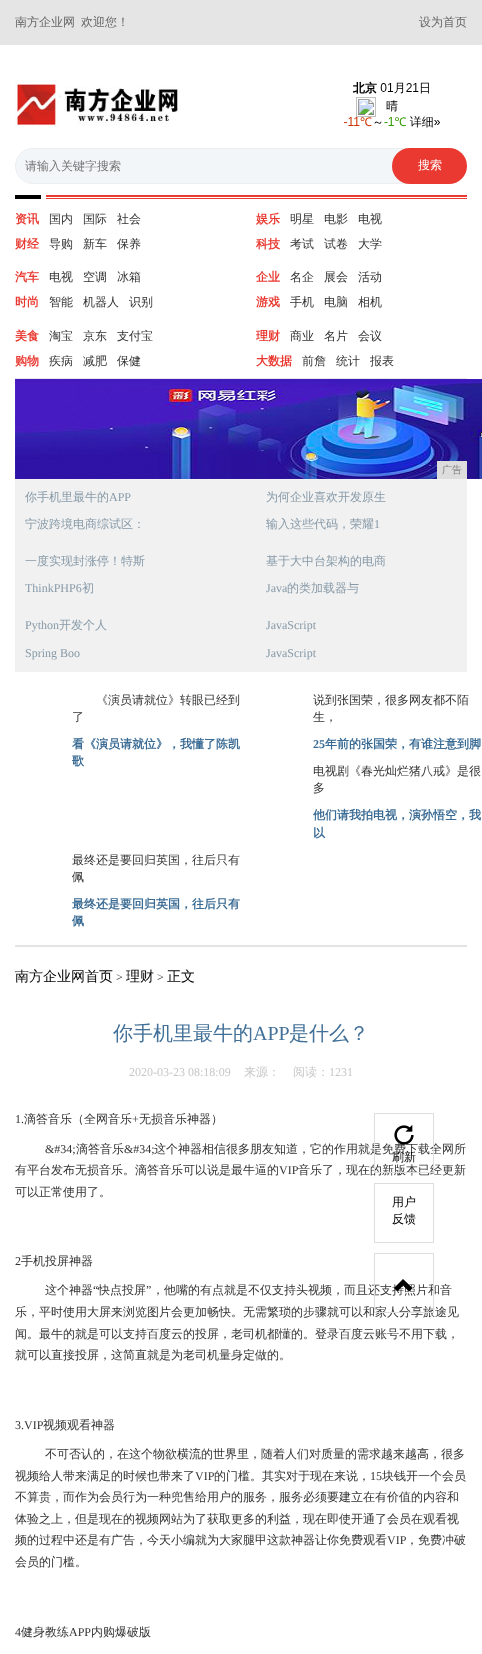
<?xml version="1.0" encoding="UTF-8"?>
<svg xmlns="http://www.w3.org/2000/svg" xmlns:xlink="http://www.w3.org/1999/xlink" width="482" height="1654">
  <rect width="100%" height="100%" fill="#ffffff" />
  <rect width="482" height="45" fill="#e5e5e5" />
  <image x="15" y="80" width="164" height="47" xlink:href="image1.png" />
  <image x="344" y="81" width="96" height="47" xlink:href="image2.png" />
  <rect x="15.5" y="148.5" width="442" height="35" rx="17.5" fill="#f3f6f8" stroke="#eceef0" />
  <rect x="392" y="148" width="75" height="36" rx="18" fill="#e93930" />
  <image x="15" y="195" width="452" height="4" xlink:href="image3.png" />
  <rect x="15" y="378" width="452" height="1" fill="#e6e6e6" />
  <image x="15" y="379" width="467" height="100" xlink:href="image4.png" />
  <rect x="437" y="461" width="30" height="18" fill="#dddddd" />
  <rect x="15" y="479" width="452" height="193" fill="#f1f1f1" />
  <rect x="15" y="945" width="452" height="2" fill="#e3e3e3" />
  <rect x="374.5" y="1183.5" width="59" height="59" fill="none" stroke="#dddddd" />
  <text x="15" y="26" style="font-family: WenQuanYi Zen Hei; font-size: 12px; font-weight: 500; fill: #666666">南方企业网</text>
  <text x="81" y="26" style="font-family: WenQuanYi Zen Hei; font-size: 12px; font-weight: 500; fill: #666666">欢迎您！</text>
  <text x="419" y="26" style="font-family: WenQuanYi Zen Hei; font-size: 12px; font-weight: 500; fill: #666666">设为首页</text>
  <text x="25" y="170" style="font-family: WenQuanYi Zen Hei; font-size: 12px; font-weight: 500; fill: #757575">请输入关键字搜索</text>
  <text x="418" y="169" style="font-family: WenQuanYi Zen Hei; font-size: 12px; font-weight: 500; fill: #ffffff">搜索</text>
  <text x="15" y="223" style="font-family: WenQuanYi Zen Hei; font-size: 12px; font-weight: bold; fill: #e93930">资讯</text>
  <text x="49" y="223" style="font-family: WenQuanYi Zen Hei; font-size: 12px; font-weight: 500; fill: #333333">国内</text>
  <text x="83" y="223" style="font-family: WenQuanYi Zen Hei; font-size: 12px; font-weight: 500; fill: #333333">国际</text>
  <text x="117" y="223" style="font-family: WenQuanYi Zen Hei; font-size: 12px; font-weight: 500; fill: #333333">社会</text>
  <text x="15" y="248" style="font-family: WenQuanYi Zen Hei; font-size: 12px; font-weight: bold; fill: #e93930">财经</text>
  <text x="49" y="248" style="font-family: WenQuanYi Zen Hei; font-size: 12px; font-weight: 500; fill: #333333">导购</text>
  <text x="83" y="248" style="font-family: WenQuanYi Zen Hei; font-size: 12px; font-weight: 500; fill: #333333">新车</text>
  <text x="117" y="248" style="font-family: WenQuanYi Zen Hei; font-size: 12px; font-weight: 500; fill: #333333">保养</text>
  <text x="256" y="223" style="font-family: WenQuanYi Zen Hei; font-size: 12px; font-weight: bold; fill: #e93930">娱乐</text>
  <text x="290" y="223" style="font-family: WenQuanYi Zen Hei; font-size: 12px; font-weight: 500; fill: #333333">明星</text>
  <text x="324" y="223" style="font-family: WenQuanYi Zen Hei; font-size: 12px; font-weight: 500; fill: #333333">电影</text>
  <text x="358" y="223" style="font-family: WenQuanYi Zen Hei; font-size: 12px; font-weight: 500; fill: #333333">电视</text>
  <text x="256" y="248" style="font-family: WenQuanYi Zen Hei; font-size: 12px; font-weight: bold; fill: #e93930">科技</text>
  <text x="290" y="248" style="font-family: WenQuanYi Zen Hei; font-size: 12px; font-weight: 500; fill: #333333">考试</text>
  <text x="324" y="248" style="font-family: WenQuanYi Zen Hei; font-size: 12px; font-weight: 500; fill: #333333">试卷</text>
  <text x="358" y="248" style="font-family: WenQuanYi Zen Hei; font-size: 12px; font-weight: 500; fill: #333333">大学</text>
  <text x="15" y="281" style="font-family: WenQuanYi Zen Hei; font-size: 12px; font-weight: bold; fill: #e93930">汽车</text>
  <text x="49" y="281" style="font-family: WenQuanYi Zen Hei; font-size: 12px; font-weight: 500; fill: #333333">电视</text>
  <text x="83" y="281" style="font-family: WenQuanYi Zen Hei; font-size: 12px; font-weight: 500; fill: #333333">空调</text>
  <text x="117" y="281" style="font-family: WenQuanYi Zen Hei; font-size: 12px; font-weight: 500; fill: #333333">冰箱</text>
  <text x="15" y="306" style="font-family: WenQuanYi Zen Hei; font-size: 12px; font-weight: bold; fill: #e93930">时尚</text>
  <text x="49" y="306" style="font-family: WenQuanYi Zen Hei; font-size: 12px; font-weight: 500; fill: #333333">智能</text>
  <text x="83" y="306" style="font-family: WenQuanYi Zen Hei; font-size: 12px; font-weight: 500; fill: #333333">机器人</text>
  <text x="129" y="306" style="font-family: WenQuanYi Zen Hei; font-size: 12px; font-weight: 500; fill: #333333">识别</text>
  <text x="256" y="281" style="font-family: WenQuanYi Zen Hei; font-size: 12px; font-weight: bold; fill: #e93930">企业</text>
  <text x="290" y="281" style="font-family: WenQuanYi Zen Hei; font-size: 12px; font-weight: 500; fill: #333333">名企</text>
  <text x="324" y="281" style="font-family: WenQuanYi Zen Hei; font-size: 12px; font-weight: 500; fill: #333333">展会</text>
  <text x="358" y="281" style="font-family: WenQuanYi Zen Hei; font-size: 12px; font-weight: 500; fill: #333333">活动</text>
  <text x="256" y="306" style="font-family: WenQuanYi Zen Hei; font-size: 12px; font-weight: bold; fill: #e93930">游戏</text>
  <text x="290" y="306" style="font-family: WenQuanYi Zen Hei; font-size: 12px; font-weight: 500; fill: #333333">手机</text>
  <text x="324" y="306" style="font-family: WenQuanYi Zen Hei; font-size: 12px; font-weight: 500; fill: #333333">电脑</text>
  <text x="358" y="306" style="font-family: WenQuanYi Zen Hei; font-size: 12px; font-weight: 500; fill: #333333">相机</text>
  <text x="15" y="340" style="font-family: WenQuanYi Zen Hei; font-size: 12px; font-weight: bold; fill: #e93930">美食</text>
  <text x="49" y="340" style="font-family: WenQuanYi Zen Hei; font-size: 12px; font-weight: 500; fill: #333333">淘宝</text>
  <text x="83" y="340" style="font-family: WenQuanYi Zen Hei; font-size: 12px; font-weight: 500; fill: #333333">京东</text>
  <text x="117" y="340" style="font-family: WenQuanYi Zen Hei; font-size: 12px; font-weight: 500; fill: #333333">支付宝</text>
  <text x="15" y="365" style="font-family: WenQuanYi Zen Hei; font-size: 12px; font-weight: bold; fill: #e93930">购物</text>
  <text x="49" y="365" style="font-family: WenQuanYi Zen Hei; font-size: 12px; font-weight: 500; fill: #333333">疾病</text>
  <text x="83" y="365" style="font-family: WenQuanYi Zen Hei; font-size: 12px; font-weight: 500; fill: #333333">减肥</text>
  <text x="117" y="365" style="font-family: WenQuanYi Zen Hei; font-size: 12px; font-weight: 500; fill: #333333">保健</text>
  <text x="256" y="340" style="font-family: WenQuanYi Zen Hei; font-size: 12px; font-weight: bold; fill: #e93930">理财</text>
  <text x="290" y="340" style="font-family: WenQuanYi Zen Hei; font-size: 12px; font-weight: 500; fill: #333333">商业</text>
  <text x="324" y="340" style="font-family: WenQuanYi Zen Hei; font-size: 12px; font-weight: 500; fill: #333333">名片</text>
  <text x="358" y="340" style="font-family: WenQuanYi Zen Hei; font-size: 12px; font-weight: 500; fill: #333333">会议</text>
  <text x="256" y="365" style="font-family: WenQuanYi Zen Hei; font-size: 12px; font-weight: bold; fill: #e93930">大数据</text>
  <text x="302" y="365" style="font-family: WenQuanYi Zen Hei; font-size: 12px; font-weight: 500; fill: #333333">前詹</text>
  <text x="336" y="365" style="font-family: WenQuanYi Zen Hei; font-size: 12px; font-weight: 500; fill: #333333">统计</text>
  <text x="370" y="365" style="font-family: WenQuanYi Zen Hei; font-size: 12px; font-weight: 500; fill: #333333">报表</text>
  <text x="442" y="473" style="font-family: WenQuanYi Zen Hei; font-size: 10px; font-weight: 500; fill: #808080">广告</text>
  <text x="25" y="501" style="font-family: WenQuanYi Zen Hei; font-size: 12px; font-weight: 500; fill: #879aa8">你手机里最牛的</text>
  <text x="109" y="501" style="font-family: Liberation Serif; font-size: 12px; fill: #879aa8">APP</text>
  <text x="25" y="528" style="font-family: WenQuanYi Zen Hei; font-size: 12px; font-weight: 500; fill: #879aa8">宁波跨境电商综试区：</text>
  <text x="266" y="501" style="font-family: WenQuanYi Zen Hei; font-size: 12px; font-weight: 500; fill: #879aa8">为何企业喜欢开发原生</text>
  <text x="266" y="528" style="font-family: WenQuanYi Zen Hei; font-size: 12px; font-weight: 500; fill: #879aa8">输入这些代码，荣耀</text>
  <text x="374" y="528" style="font-family: Liberation Serif; font-size: 12px; fill: #879aa8">1</text>
  <text x="25" y="565" style="font-family: WenQuanYi Zen Hei; font-size: 12px; font-weight: 500; fill: #879aa8">一度实现封涨停！特斯</text>
  <text x="25" y="592" style="font-family: Liberation Serif; font-size: 12px; fill: #879aa8">ThinkPHP6</text>
  <text x="82" y="592" style="font-family: WenQuanYi Zen Hei; font-size: 12px; font-weight: 500; fill: #879aa8">初</text>
  <text x="266" y="565" style="font-family: WenQuanYi Zen Hei; font-size: 12px; font-weight: 500; fill: #879aa8">基于大中台架构的电商</text>
  <text x="266" y="592" style="font-family: Liberation Serif; font-size: 12px; fill: #879aa8">Java</text>
  <text x="287" y="592" style="font-family: WenQuanYi Zen Hei; font-size: 12px; font-weight: 500; fill: #879aa8">的类加载器与</text>
  <text x="25" y="629" style="font-family: Liberation Serif; font-size: 12px; fill: #879aa8">Python</text>
  <text x="59" y="629" style="font-family: WenQuanYi Zen Hei; font-size: 12px; font-weight: 500; fill: #879aa8">开发个人</text>
  <text x="25" y="657" style="font-family: Liberation Serif; font-size: 12px; fill: #879aa8">Spring Boo</text>
  <text x="266" y="629" style="font-family: Liberation Serif; font-size: 12px; fill: #879aa8">JavaScript</text>
  <text x="266" y="657" style="font-family: Liberation Serif; font-size: 12px; fill: #879aa8">JavaScript</text>
  <text x="96" y="704" style="font-family: WenQuanYi Zen Hei; font-size: 12px; font-weight: 500; fill: #333333">《演员请就位》转眼已经到</text>
  <text x="72" y="721" style="font-family: WenQuanYi Zen Hei; font-size: 12px; font-weight: 500; fill: #333333">了</text>
  <text x="72" y="748" style="font-family: WenQuanYi Zen Hei; font-size: 12px; font-weight: bold; fill: #3a6b94">看《演员请就位》，我懂了陈凯</text>
  <text x="72" y="765" style="font-family: WenQuanYi Zen Hei; font-size: 12px; font-weight: bold; fill: #3a6b94">歌</text>
  <text x="313" y="704" style="font-family: WenQuanYi Zen Hei; font-size: 12px; font-weight: 500; fill: #333333">说到张国荣，很多网友都不陌</text>
  <text x="313" y="721" style="font-family: WenQuanYi Zen Hei; font-size: 12px; font-weight: 500; fill: #333333">生，</text>
  <text x="313" y="748" style="font-family: Liberation Serif; font-size: 12px; font-weight: bold; fill: #3a6b94">25</text>
  <text x="325" y="748" style="font-family: WenQuanYi Zen Hei; font-size: 12px; font-weight: bold; fill: #3a6b94">年前的张国荣，有谁注意到脚</text>
  <text x="313" y="775" style="font-family: WenQuanYi Zen Hei; font-size: 12px; font-weight: 500; fill: #333333">电视剧《春光灿烂猪八戒》是很</text>
  <text x="313" y="792" style="font-family: WenQuanYi Zen Hei; font-size: 12px; font-weight: 500; fill: #333333">多</text>
  <text x="313" y="819" style="font-family: WenQuanYi Zen Hei; font-size: 12px; font-weight: bold; fill: #3a6b94">他们请我拍电视，演孙悟空，我</text>
  <text x="313" y="837" style="font-family: WenQuanYi Zen Hei; font-size: 12px; font-weight: bold; fill: #3a6b94">以</text>
  <text x="72" y="864" style="font-family: WenQuanYi Zen Hei; font-size: 12px; font-weight: 500; fill: #333333">最终还是要回归英国，往后只有</text>
  <text x="72" y="881" style="font-family: WenQuanYi Zen Hei; font-size: 12px; font-weight: 500; fill: #333333">佩</text>
  <text x="72" y="908" style="font-family: WenQuanYi Zen Hei; font-size: 12px; font-weight: bold; fill: #3a6b94">最终还是要回归英国，往后只有</text>
  <text x="72" y="925" style="font-family: WenQuanYi Zen Hei; font-size: 12px; font-weight: bold; fill: #3a6b94">佩</text>
  <text x="15" y="981" style="font-family: WenQuanYi Zen Hei; font-size: 14px; font-weight: 500; fill: #000000">南方企业网首页</text>
  <text x="116" y="981" style="font-family: Liberation Serif; font-size: 12px; fill: #333333">&gt;</text>
  <text x="126" y="981" style="font-family: WenQuanYi Zen Hei; font-size: 14px; font-weight: 500; fill: #000000">理财</text>
  <text x="157" y="981" style="font-family: Liberation Serif; font-size: 12px; fill: #333333">&gt;</text>
  <text x="167" y="981" style="font-family: WenQuanYi Zen Hei; font-size: 14px; font-weight: 500; fill: #000000">正文</text>
  <text x="113" y="1040" style="font-family: WenQuanYi Zen Hei; font-size: 20px; font-weight: 500; fill: #427098">你手机里最牛的</text>
  <text x="253" y="1040" style="font-family: Liberation Serif; font-size: 20px; fill: #427098">APP</text>
  <text x="289" y="1040" style="font-family: WenQuanYi Zen Hei; font-size: 20px; font-weight: 500; fill: #427098">是什么？</text>
  <text x="129" y="1076" style="font-family: Liberation Serif; font-size: 12px; fill: #c7c7c7">2020-03-23 08:18:09</text>
  <text x="244" y="1076" style="font-family: WenQuanYi Zen Hei; font-size: 12px; font-weight: 500; fill: #c7c7c7">来源：</text>
  <text x="293" y="1076" style="font-family: WenQuanYi Zen Hei; font-size: 12px; font-weight: 500; fill: #c7c7c7">阅读：</text>
  <text x="329" y="1076" style="font-family: Liberation Serif; font-size: 12px; fill: #c7c7c7">1231</text>
  <text x="15" y="1123" style="font-family: Liberation Serif; font-size: 12px; fill: #333333">1.</text>
  <text x="24" y="1123" style="font-family: WenQuanYi Zen Hei; font-size: 12px; font-weight: 500; fill: #333333">滴答音乐（全网音乐</text>
  <text x="132" y="1123" style="font-family: Liberation Serif; font-size: 12px; fill: #333333">+</text>
  <text x="139" y="1123" style="font-family: WenQuanYi Zen Hei; font-size: 12px; font-weight: 500; fill: #333333">无损音乐神器）</text>
  <text x="45" y="1153" style="font-family: Liberation Serif; font-size: 12px; fill: #333333">&amp;#34;</text>
  <text x="76" y="1153" style="font-family: WenQuanYi Zen Hei; font-size: 12px; font-weight: 500; fill: #333333">滴答音乐</text>
  <text x="124" y="1153" style="font-family: Liberation Serif; font-size: 12px; fill: #333333">&amp;#34;</text>
  <text x="154" y="1153" style="font-family: WenQuanYi Zen Hei; font-size: 12px; font-weight: 500; fill: #333333">这个神器相信很多朋友知道，它的作用就是免费下载全网所</text>
  <text x="15" y="1174" style="font-family: WenQuanYi Zen Hei; font-size: 12px; font-weight: 500; fill: #333333">有平台发布无损音乐。滴答音乐可以说是最牛逼的</text>
  <text x="279" y="1174" style="font-family: Liberation Serif; font-size: 12px; fill: #333333">VIP</text>
  <text x="298" y="1174" style="font-family: WenQuanYi Zen Hei; font-size: 12px; font-weight: 500; fill: #333333">音乐了，现在的新版本已经更新</text>
  <text x="15" y="1196" style="font-family: WenQuanYi Zen Hei; font-size: 12px; font-weight: 500; fill: #333333">可以正常使用了。</text>
  <text x="15" y="1265" style="font-family: Liberation Serif; font-size: 12px; fill: #333333">2</text>
  <text x="21" y="1265" style="font-family: WenQuanYi Zen Hei; font-size: 12px; font-weight: 500; fill: #333333">手机投屏神器</text>
  <text x="45" y="1294" style="font-family: WenQuanYi Zen Hei; font-size: 12px; font-weight: 500; fill: #333333">这个神器</text>
  <text x="93" y="1294" style="font-family: Liberation Serif; font-size: 12px; fill: #333333">“</text>
  <text x="98" y="1294" style="font-family: WenQuanYi Zen Hei; font-size: 12px; font-weight: 500; fill: #333333">快点投屏</text>
  <text x="146" y="1294" style="font-family: Liberation Serif; font-size: 12px; fill: #333333">”</text>
  <text x="152" y="1294" style="font-family: WenQuanYi Zen Hei; font-size: 12px; font-weight: 500; fill: #333333">，他嘴的有点就是不仅支持头视频，而且还支持照片和音</text>
  <text x="15" y="1316" style="font-family: WenQuanYi Zen Hei; font-size: 12px; font-weight: 500; fill: #333333">乐，平时使用大屏来浏览图片会更加畅快。无需繁琐的步骤就可以和家人分享旅途见</text>
  <text x="15" y="1338" style="font-family: WenQuanYi Zen Hei; font-size: 12px; font-weight: 500; fill: #333333">闻。最牛的就是可以支持百度云的投屏，老司机都懂的。登录百度云账号不用下载，</text>
  <text x="15" y="1359" style="font-family: WenQuanYi Zen Hei; font-size: 12px; font-weight: 500; fill: #333333">就可以直接投屏，这简直就是为老司机量身定做的。</text>
  <text x="15" y="1429" style="font-family: Liberation Serif; font-size: 12px; fill: #333333">3.VIP</text>
  <text x="43" y="1429" style="font-family: WenQuanYi Zen Hei; font-size: 12px; font-weight: 500; fill: #333333">视频观看神器</text>
  <text x="45" y="1458" style="font-family: WenQuanYi Zen Hei; font-size: 12px; font-weight: 500; fill: #333333">不可否认的，在这个物欲横流的世界里，随着人们对质量的需求越来越高，很多</text>
  <text x="15" y="1480" style="font-family: WenQuanYi Zen Hei; font-size: 12px; font-weight: 500; fill: #333333">视频给人带来满足的时候也带来了</text>
  <text x="195" y="1480" style="font-family: Liberation Serif; font-size: 12px; fill: #333333">VIP</text>
  <text x="214" y="1480" style="font-family: WenQuanYi Zen Hei; font-size: 12px; font-weight: 500; fill: #333333">的门槛。其实对于现在来说，</text>
  <text x="370" y="1480" style="font-family: Liberation Serif; font-size: 12px; fill: #333333">15</text>
  <text x="382" y="1480" style="font-family: WenQuanYi Zen Hei; font-size: 12px; font-weight: 500; fill: #333333">块钱开一个会员</text>
  <text x="15" y="1501" style="font-family: WenQuanYi Zen Hei; font-size: 12px; font-weight: 500; fill: #333333">不算贵，而作为会员行为一种兜售给用户的服务，服务必须要建立在有价值的内容和</text>
  <text x="15" y="1523" style="font-family: WenQuanYi Zen Hei; font-size: 12px; font-weight: 500; fill: #333333">体验之上，但是现在的视频网站为了获取更多的利益，现在即使开通了会员在观看视</text>
  <text x="15" y="1544" style="font-family: WenQuanYi Zen Hei; font-size: 12px; font-weight: 500; fill: #333333">频的过程中还是有广告，今天小编就为大家腿甲这款神器让你免费观看</text>
  <text x="387" y="1544" style="font-family: Liberation Serif; font-size: 12px; fill: #333333">VIP</text>
  <text x="406" y="1544" style="font-family: WenQuanYi Zen Hei; font-size: 12px; font-weight: 500; fill: #333333">，免费冲破</text>
  <text x="15" y="1566" style="font-family: WenQuanYi Zen Hei; font-size: 12px; font-weight: 500; fill: #333333">会员的门槛。</text>
  <text x="15" y="1636" style="font-family: Liberation Serif; font-size: 12px; fill: #333333">4</text>
  <text x="21" y="1636" style="font-family: WenQuanYi Zen Hei; font-size: 12px; font-weight: 500; fill: #333333">健身教练</text>
  <text x="69" y="1636" style="font-family: Liberation Serif; font-size: 12px; fill: #333333">APP</text>
  <text x="91" y="1636" style="font-family: WenQuanYi Zen Hei; font-size: 12px; font-weight: 500; fill: #333333">内购爆破版</text>
  <rect x="374.5" y="1113.5" width="59" height="59" fill="none" stroke="#dddddd" />
  <image x="394" y="1125" width="20" height="20" xlink:href="image5.png" />
  <text x="392" y="1161" style="font-family: WenQuanYi Zen Hei; font-size: 12px; font-weight: 500; fill: #000000">刷新</text>
  <text x="392" y="1206" style="font-family: WenQuanYi Zen Hei; font-size: 12px; font-weight: 500; fill: #000000">用户</text>
  <text x="392" y="1223" style="font-family: WenQuanYi Zen Hei; font-size: 12px; font-weight: 500; fill: #000000">反馈</text>
  <rect x="374.5" y="1253.5" width="59" height="59" fill="none" stroke="#dddddd" />
  <path d="M 412.5 1288 l -3.5 3.5 l -6 -6 l -5.5 6 l -3.5 -3.5 l 9 -9 z" fill="#000000" />
</svg>
